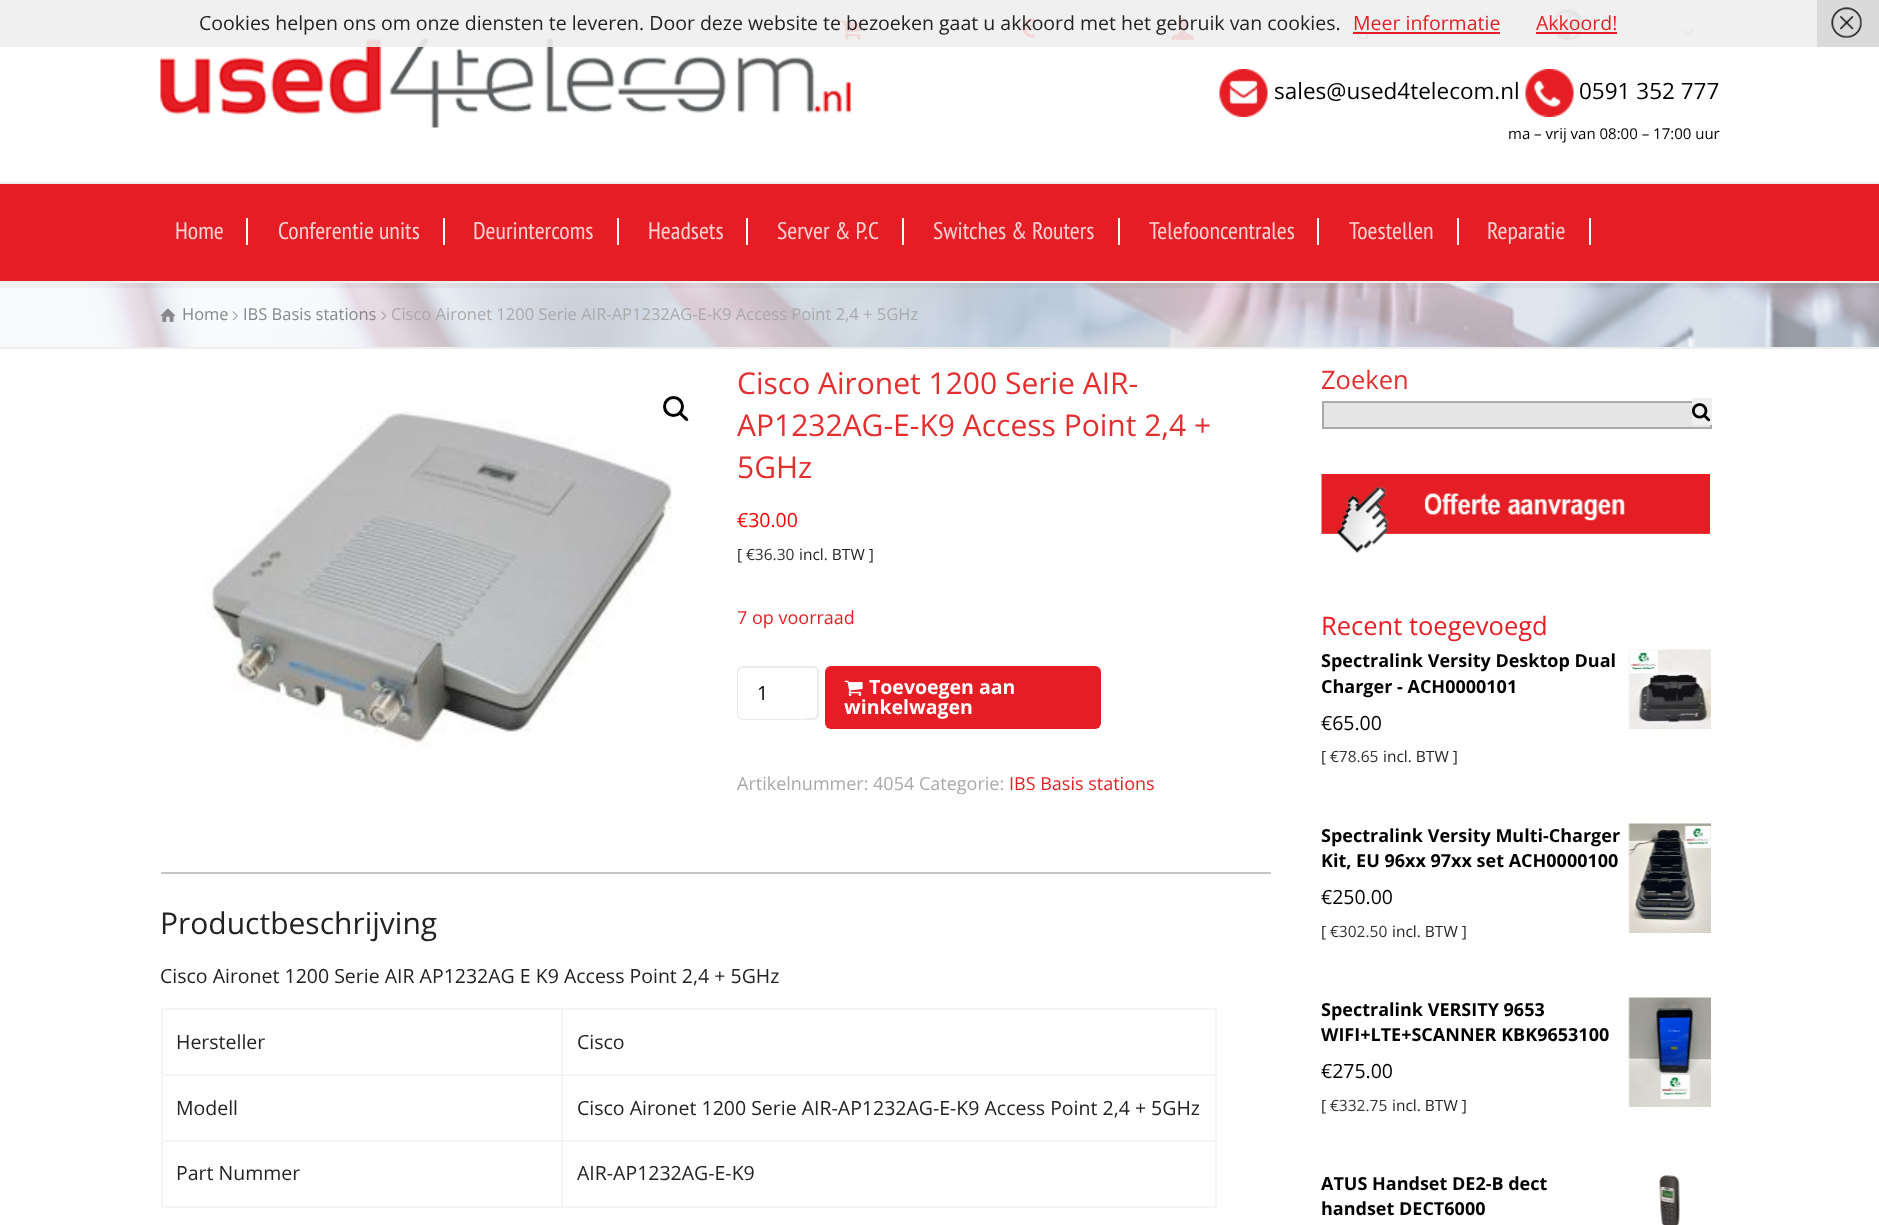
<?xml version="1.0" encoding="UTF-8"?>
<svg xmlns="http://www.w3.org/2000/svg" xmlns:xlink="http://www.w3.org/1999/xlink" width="1879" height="1225">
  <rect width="100%" height="100%" fill="#ffffff" />
  <image x="840" y="20" width="23" height="20" xlink:href="image2.png" />
  <image x="1021" y="18" width="14" height="20" xlink:href="image3.png" />
  <image x="1171" y="18" width="24" height="22" xlink:href="image4.png" />
  <image x="1353" y="24" width="15" height="16" xlink:href="image5.png" />
  <image x="1552" y="9" width="32" height="32" xlink:href="image6.png" />
  <image x="1683" y="29" width="10" height="6" xlink:href="image7.png" />
  <image x="160" y="38" width="691" height="90" xlink:href="image8.png" />
  <rect width="1817" height="47" fill="#eeeeee" fill-opacity="0.9" />
  <rect x="1353" y="32" width="147" height="2" fill="#e41e24" />
  <rect x="1536" y="32" width="81" height="2" fill="#e41e24" />
  <rect x="1817" width="62" height="47" fill="#dadada" />
  <image x="1831" y="7" width="31" height="31" xlink:href="image1.png" />
  <image x="1219" y="69" width="49" height="48" xlink:href="image9.png" />
  <image x="1525" y="69" width="49" height="48" xlink:href="image10.png" />
  <image x="0" y="283" width="1879" height="64" xlink:href="image11.png" />
  <path d="M 0 282 v 6 h 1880 v -100 v 94 z" fill="#000000" fill-opacity="0.04" />
  <rect y="184" width="1879" height="97" fill="#e41e24" />
  <rect y="182" width="1879" height="2" fill="#eeeeee" />
  <rect y="281" width="1879" height="2" fill="#eeeeee" />
  <rect x="246" y="218" width="2" height="27" fill="#ffffff" />
  <rect x="443" y="218" width="2" height="27" fill="#ffffff" />
  <rect x="617" y="218" width="2" height="27" fill="#ffffff" />
  <rect x="746" y="218" width="2" height="27" fill="#ffffff" />
  <rect x="902" y="218" width="2" height="27" fill="#ffffff" />
  <rect x="1118" y="218" width="2" height="27" fill="#ffffff" />
  <rect x="1317" y="218" width="2" height="27" fill="#ffffff" />
  <rect x="1457" y="218" width="2" height="27" fill="#ffffff" />
  <rect x="1589" y="218" width="2" height="27" fill="#ffffff" />
  <rect y="347" width="1879" height="2" fill="#eeeeee" />
  <image x="160" y="308" width="16" height="14" xlink:href="image12.png" />
  <image x="232" y="311" width="6" height="10" xlink:href="image13.png" />
  <image x="381" y="311" width="6" height="10" xlink:href="image14.png" />
  <image x="206" y="410" width="467" height="337" xlink:href="image15.png" />
  <circle cx="673.5" cy="406.5" r="9" fill="none" stroke="#000000" stroke-width="3" />
  <path d="M 679.5 412 c 1.5 -1.5 4 2.5 5 3.5 c 1 0.5 5 3.5 3.5 5 c -2 2 -4.5 -2 -5.5 -3 c -1 -1 -5 -3.5 -3 -5.5 z" fill="#000000" />
  <rect x="738" y="667" width="80" height="52" rx="5" fill="none" stroke="#ebebeb" stroke-width="2" />
  <rect x="738" y="668" width="72" height="51" rx="6" fill="#ffffff" />
  <rect x="825" y="666" width="276" height="63" rx="6" fill="#e41e24" />
  <image x="844" y="680" width="19" height="16" xlink:href="image16.png" />
  <rect x="161" y="872" width="1110" height="2" fill="#c5c5c5" />
  <rect x="161" y="1008" width="1056" height="2" fill="#f5f5f5" />
  <rect x="1215" y="1008" width="2" height="200" fill="#f5f5f5" />
  <rect x="161" y="1074" width="1054" height="2" fill="#f5f5f5" />
  <rect x="161" y="1010" width="2" height="66" fill="#f5f5f5" />
  <rect x="561" y="1010" width="2" height="66" fill="#f5f5f5" />
  <rect x="161" y="1140" width="1054" height="2" fill="#f5f5f5" />
  <rect x="161" y="1076" width="2" height="66" fill="#f5f5f5" />
  <rect x="561" y="1076" width="2" height="66" fill="#f5f5f5" />
  <rect x="161" y="1206" width="1054" height="2" fill="#f5f5f5" />
  <rect x="161" y="1142" width="2" height="66" fill="#f5f5f5" />
  <rect x="561" y="1142" width="2" height="66" fill="#f5f5f5" />
  <rect x="1323" y="402" width="388" height="26" fill="#e5e5e5" stroke="#aaaaaa" stroke-width="2" />
  <rect x="1692" y="398" width="20" height="27" fill="#efefef" />
  <image x="1692" y="403" width="19" height="19" xlink:href="image17.png" />
  <image x="1321" y="474" width="389" height="79" xlink:href="image18.png" />
  <image x="1628" y="649" width="83" height="80" xlink:href="image19.png" />
  <image x="1628" y="823" width="83" height="110" xlink:href="image20.png" />
  <image x="1628" y="997" width="83" height="110" xlink:href="image21.png" />
  <image x="1659" y="1171" width="22" height="54" xlink:href="image22.png" />
  <text x="199" y="30" style="font-family: Open Sans; font-size: 19.5px; fill: #222222">Cookies helpen ons om onze diensten te leveren. Door deze website te bezoeken gaat u akkoord met het gebruik van cookies.</text>
  <text x="1353" y="30" style="font-family: Open Sans; font-size: 19.5px; fill: #e41e24">Meer informatie</text>
  <text x="1536" y="30" style="font-family: Open Sans; font-size: 19.5px; fill: #e41e24">Akkoord!</text>
  <text x="1274" y="99" style="font-family: Open Sans; font-size: 22.5px; fill: #000000">sales@used4telecom.nl</text>
  <text x="1579" y="99" style="font-family: Open Sans; font-size: 22.5px; fill: #000000">0591 352 777</text>
  <text x="1508" y="139" style="font-family: Open Sans; font-size: 15px; fill: #000000">ma – vrij van 08:00 – 17:00 uur</text>
  <text x="175" y="239" style="font-family: PT Sans Narrow; font-size: 24px; fill: #fad2d3">Home</text>
  <text x="278" y="239" style="font-family: PT Sans Narrow; font-size: 24px; fill: #fad2d3">Conferentie units</text>
  <text x="473" y="239" style="font-family: PT Sans Narrow; font-size: 24px; fill: #fad2d3">Deurintercoms</text>
  <text x="648" y="239" style="font-family: PT Sans Narrow; font-size: 24px; fill: #fad2d3">Headsets</text>
  <text x="777" y="239" style="font-family: PT Sans Narrow; font-size: 24px; fill: #fad2d3">Server &amp; P.C</text>
  <text x="933" y="239" style="font-family: PT Sans Narrow; font-size: 24px; fill: #fad2d3">Switches &amp; Routers</text>
  <text x="1149" y="239" style="font-family: PT Sans Narrow; font-size: 24px; fill: #fad2d3">Telefooncentrales</text>
  <text x="1349" y="239" style="font-family: PT Sans Narrow; font-size: 24px; fill: #fad2d3">Toestellen</text>
  <text x="1487" y="239" style="font-family: PT Sans Narrow; font-size: 24px; fill: #fad2d3">Reparatie</text>
  <text x="182" y="320" style="font-family: Open Sans; font-size: 16.5px; fill: #888888">Home</text>
  <text x="243" y="320" style="font-family: Open Sans; font-size: 16.5px; fill: #888888">IBS Basis stations</text>
  <text x="391" y="320" style="font-family: Open Sans; font-size: 16.5px; fill: #aaaaaa">Cisco Aironet 1200 Serie AIR-AP1232AG-E-K9 Access Point 2,4 + 5GHz</text>
  <text x="737" y="394" style="font-family: Open Sans; font-size: 30px; fill: #e42f31">Cisco Aironet 1200 Serie AIR-</text>
  <text x="737" y="436" style="font-family: Open Sans; font-size: 30px; fill: #e42f31">AP1232AG-E-K9 Access Point 2,4 +</text>
  <text x="737" y="478" style="font-family: Open Sans; font-size: 30px; fill: #e42f31">5GHz</text>
  <text x="737" y="527" style="font-family: Open Sans; font-size: 19.5px; fill: #ff0000">€30.00</text>
  <text x="737" y="560" style="font-family: Open Sans; font-size: 15.5px; fill: #222222">[</text>
  <text x="746" y="560" style="font-family: Open Sans; font-size: 15.5px; fill: #333333">€36.30</text>
  <text x="799" y="560" style="font-family: Open Sans; font-size: 15.5px; fill: #222222">incl. BTW ]</text>
  <text x="737" y="624" style="font-family: Open Sans; font-size: 18px; fill: #e41e24">7 op voorraad</text>
  <text x="757" y="700" style="font-family: Open Sans; font-size: 19.5px; fill: #000000">1</text>
  <text x="869" y="694" style="font-family: Open Sans; font-size: 19.5px; font-weight: bold; fill: #ffffff">Toevoegen aan</text>
  <text x="844" y="714" style="font-family: Open Sans; font-size: 19.5px; font-weight: bold; fill: #ffffff">winkelwagen</text>
  <text x="737" y="790" style="font-family: Open Sans; font-size: 18px; fill: #aaaaaa">Artikelnummer: 4054 Categorie:</text>
  <text x="1009" y="790" style="font-family: Open Sans; font-size: 18px; fill: #e41e24">IBS Basis stations</text>
  <text x="160" y="934" style="font-family: Open Sans; font-size: 30px; fill: #222222">Productbeschrijving</text>
  <text x="160" y="983" style="font-family: Open Sans; font-size: 19.5px; fill: #222222">Cisco Aironet 1200 Serie AIR AP1232AG E K9 Access Point 2,4 + 5GHz</text>
  <text x="176" y="1049" style="font-family: Open Sans; font-size: 19.5px; fill: #222222">Hersteller</text>
  <text x="577" y="1049" style="font-family: Open Sans; font-size: 19.5px; fill: #222222">Cisco</text>
  <text x="176" y="1115" style="font-family: Open Sans; font-size: 19.5px; fill: #222222">Modell</text>
  <text x="577" y="1115" style="font-family: Open Sans; font-size: 19.5px; fill: #222222">Cisco Aironet 1200 Serie AIR-AP1232AG-E-K9 Access Point 2,4 + 5GHz</text>
  <text x="176" y="1180" style="font-family: Open Sans; font-size: 19.5px; fill: #222222">Part Nummer</text>
  <text x="577" y="1180" style="font-family: Open Sans; font-size: 19.5px; fill: #222222">AIR-AP1232AG-E-K9</text>
  <text x="1321" y="389" style="font-family: Open Sans; font-size: 25.5px; fill: #e42f31">Zoeken</text>
  <text x="1321" y="635" style="font-family: Open Sans; font-size: 25.5px; fill: #e41e24">Recent toegevoegd</text>
  <text x="1321" y="667" style="font-family: Open Sans; font-size: 18px; font-weight: bold; fill: #000000">Spectralink Versity Desktop Dual</text>
  <text x="1321" y="693" style="font-family: Open Sans; font-size: 18px; font-weight: bold; fill: #000000">Charger - ACH0000101</text>
  <text x="1321" y="730" style="font-family: Open Sans; font-size: 19.5px; fill: #000000">€65.00</text>
  <text x="1321" y="762" style="font-family: Open Sans; font-size: 15.5px; fill: #222222">[</text>
  <text x="1330" y="762" style="font-family: Open Sans; font-size: 15.5px; fill: #333333">€78.65</text>
  <text x="1383" y="762" style="font-family: Open Sans; font-size: 15.5px; fill: #222222">incl. BTW ]</text>
  <text x="1321" y="842" style="font-family: Open Sans; font-size: 18px; font-weight: bold; fill: #000000">Spectralink Versity Multi-Charger</text>
  <text x="1321" y="867" style="font-family: Open Sans; font-size: 18px; font-weight: bold; fill: #000000">Kit, EU 96xx 97xx set ACH0000100</text>
  <text x="1321" y="904" style="font-family: Open Sans; font-size: 19.5px; fill: #000000">€250.00</text>
  <text x="1321" y="937" style="font-family: Open Sans; font-size: 15.5px; fill: #222222">[</text>
  <text x="1330" y="937" style="font-family: Open Sans; font-size: 15.5px; fill: #333333">€302.50</text>
  <text x="1392" y="937" style="font-family: Open Sans; font-size: 15.5px; fill: #222222">incl. BTW ]</text>
  <text x="1321" y="1016" style="font-family: Open Sans; font-size: 18px; font-weight: bold; fill: #000000">Spectralink VERSITY 9653</text>
  <text x="1321" y="1041" style="font-family: Open Sans; font-size: 18px; font-weight: bold; fill: #000000">WIFI+LTE+SCANNER KBK9653100</text>
  <text x="1321" y="1078" style="font-family: Open Sans; font-size: 19.5px; fill: #000000">€275.00</text>
  <text x="1321" y="1111" style="font-family: Open Sans; font-size: 15.5px; fill: #222222">[</text>
  <text x="1330" y="1111" style="font-family: Open Sans; font-size: 15.5px; fill: #333333">€332.75</text>
  <text x="1392" y="1111" style="font-family: Open Sans; font-size: 15.5px; fill: #222222">incl. BTW ]</text>
  <text x="1321" y="1190" style="font-family: Open Sans; font-size: 18px; font-weight: bold; fill: #000000">ATUS Handset DE2-B dect</text>
  <text x="1321" y="1215" style="font-family: Open Sans; font-size: 18px; font-weight: bold; fill: #000000">handset DECT6000</text>
</svg>
